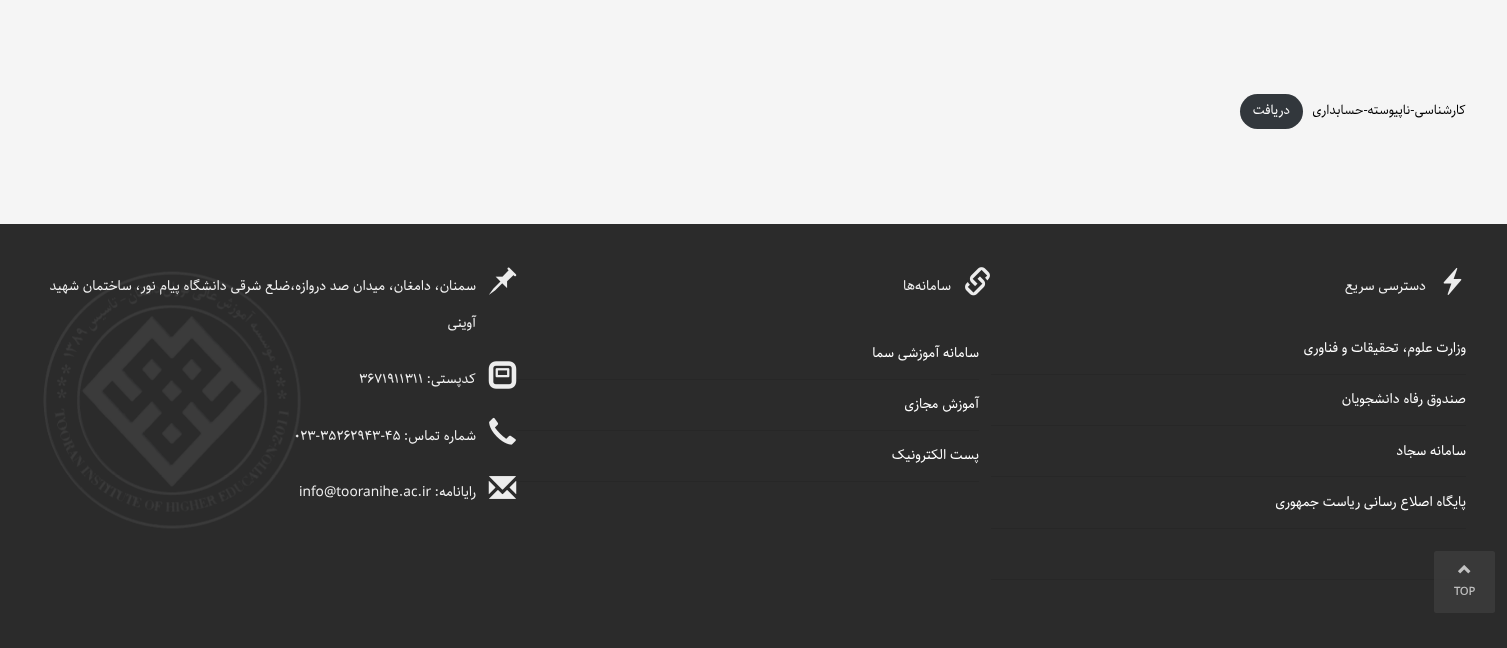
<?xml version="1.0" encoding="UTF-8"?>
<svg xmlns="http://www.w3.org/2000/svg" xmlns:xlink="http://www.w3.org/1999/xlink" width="1507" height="648">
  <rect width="100%" height="100%" fill="#f5f5f5" />
  <rect x="1240" y="94" width="63" height="35" rx="17.5" fill="#32373c" />
  <rect y="224" width="1507" height="424" fill="#2b2b2b" />
  <image x="1443" y="267" width="19" height="28" xlink:href="image1.png" />
  <rect x="991" y="374" width="475" height="1" fill="#272727" />
  <rect x="991" y="425" width="475" height="1" fill="#272727" />
  <rect x="991" y="476" width="475" height="1" fill="#272727" />
  <rect x="991" y="528" width="475" height="1" fill="#272727" />
  <rect x="991" y="579" width="475" height="1" fill="#272727" />
  <image x="1457" y="556" width="4" height="3" xlink:href="image6.png" />
  <image x="965" y="267" width="25" height="29" xlink:href="image7.png" />
  <rect x="516" y="379" width="463" height="1" fill="#272727" />
  <rect x="516" y="430" width="463" height="1" fill="#272727" />
  <rect x="516" y="481" width="463" height="1" fill="#272727" />
  <image x="43" y="271" width="258" height="258" xlink:href="image10.png" />
  <image x="489" y="267" width="28" height="28" xlink:href="image11.png" />
  <image x="488" y="361" width="29" height="28" xlink:href="image12.png" />
  <image x="489" y="417" width="27" height="28" xlink:href="image13.png" />
  <image x="488" y="476" width="29" height="23" xlink:href="image14.png" />
  <rect x="1434" y="551" width="61" height="62" rx="2.5" fill="#404040" fill-opacity="0.7" />
  <image x="1458" y="565" width="13" height="9" xlink:href="image15.png" />
  <text x="1466" y="114" style="font-family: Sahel; font-size: 13px; direction: rtl; fill: #000000">کارشناسی-ناپیوسته-حسابداری</text>
  <text x="1290" y="114" style="font-family: Sahel; font-size: 13px; direction: rtl; fill: #ffffff">دریافت</text>
  <text x="1426" y="290" style="font-family: Sahel; font-size: 13.75px; direction: rtl; fill: #f2f2f2">دسترسی سریع</text>
  <text x="1466" y="352" style="font-family: Sahel; font-size: 13.75px; direction: rtl; fill: #ffffff">وزارت علوم، تحقیقات و فناوری</text>
  <image x="1457" y="345" width="7" height="10" xlink:href="image2.png" />
  <text x="1466" y="403" style="font-family: Sahel; font-size: 13.75px; direction: rtl; fill: #ffffff">صندوق رفاه دانشجویان</text>
  <image x="1459" y="398" width="4" height="5" xlink:href="image3.png" />
  <text x="1466" y="455" style="font-family: Sahel; font-size: 13.75px; direction: rtl; fill: #ffffff">سامانه سجاد</text>
  <image x="1458" y="451" width="5" height="4" xlink:href="image4.png" />
  <text x="1466" y="506" style="font-family: Sahel; font-size: 13.75px; direction: rtl; fill: #ffffff">پایگاه اصلاع رسانی ریاست جمهوری</text>
  <image x="1459" y="498" width="3" height="8" xlink:href="image5.png" />
  <text x="951" y="290" style="font-family: Sahel; font-size: 13.75px; direction: rtl; fill: #f2f2f2">سامانه‌ها</text>
  <text x="979" y="357" style="font-family: Sahel; font-size: 13.75px; direction: rtl; fill: #ffffff">سامانه آموزشی سما</text>
  <image x="971" y="353" width="4" height="4" xlink:href="image8.png" />
  <text x="979" y="408" style="font-family: Sahel; font-size: 13.75px; direction: rtl; fill: #ffffff">آموزش مجازی</text>
  <text x="979" y="459" style="font-family: Sahel; font-size: 13.75px; direction: rtl; fill: #ffffff">پست الکترونیک</text>
  <image x="972" y="457" width="3" height="2" xlink:href="image9.png" />
  <text x="476" y="290" style="font-family: Sahel; font-size: 13.75px; direction: rtl; fill: #f2f2f2">سمنان، دامغان، میدان صد دروازه،ضلع شرقی دانشگاه پیام نور، ساختمان شهید</text>
  <text x="476" y="327" style="font-family: Sahel; font-size: 13.75px; direction: rtl; fill: #f2f2f2">آوینی</text>
  <text x="476" y="383" style="font-family: Sahel; font-size: 13.75px; direction: rtl; fill: #f2f2f2">کدپستی:</text>
  <text x="359" y="383" style="font-family: Sahel; font-size: 13.75px; fill: #f2f2f2">3671911311</text>
  <text x="476" y="440" style="font-family: Sahel; font-size: 13.75px; direction: rtl; fill: #f2f2f2">شماره تماس:</text>
  <text x="294" y="440" style="font-family: Sahel; font-size: 13.75px; fill: #f2f2f2">023-35262943-45</text>
  <text x="476" y="496" style="font-family: Sahel; font-size: 13.75px; direction: rtl; fill: #f2f2f2">رایانامه:</text>
  <text x="299" y="496" style="font-family: Sahel; font-size: 13.75px; fill: #f2f2f2">info@tooranihe.ac.ir</text>
  <text x="1454" y="595" style="font-family: Sahel; font-size: 11px; font-weight: bold; fill: #bfbfbf">TOP</text>
</svg>
